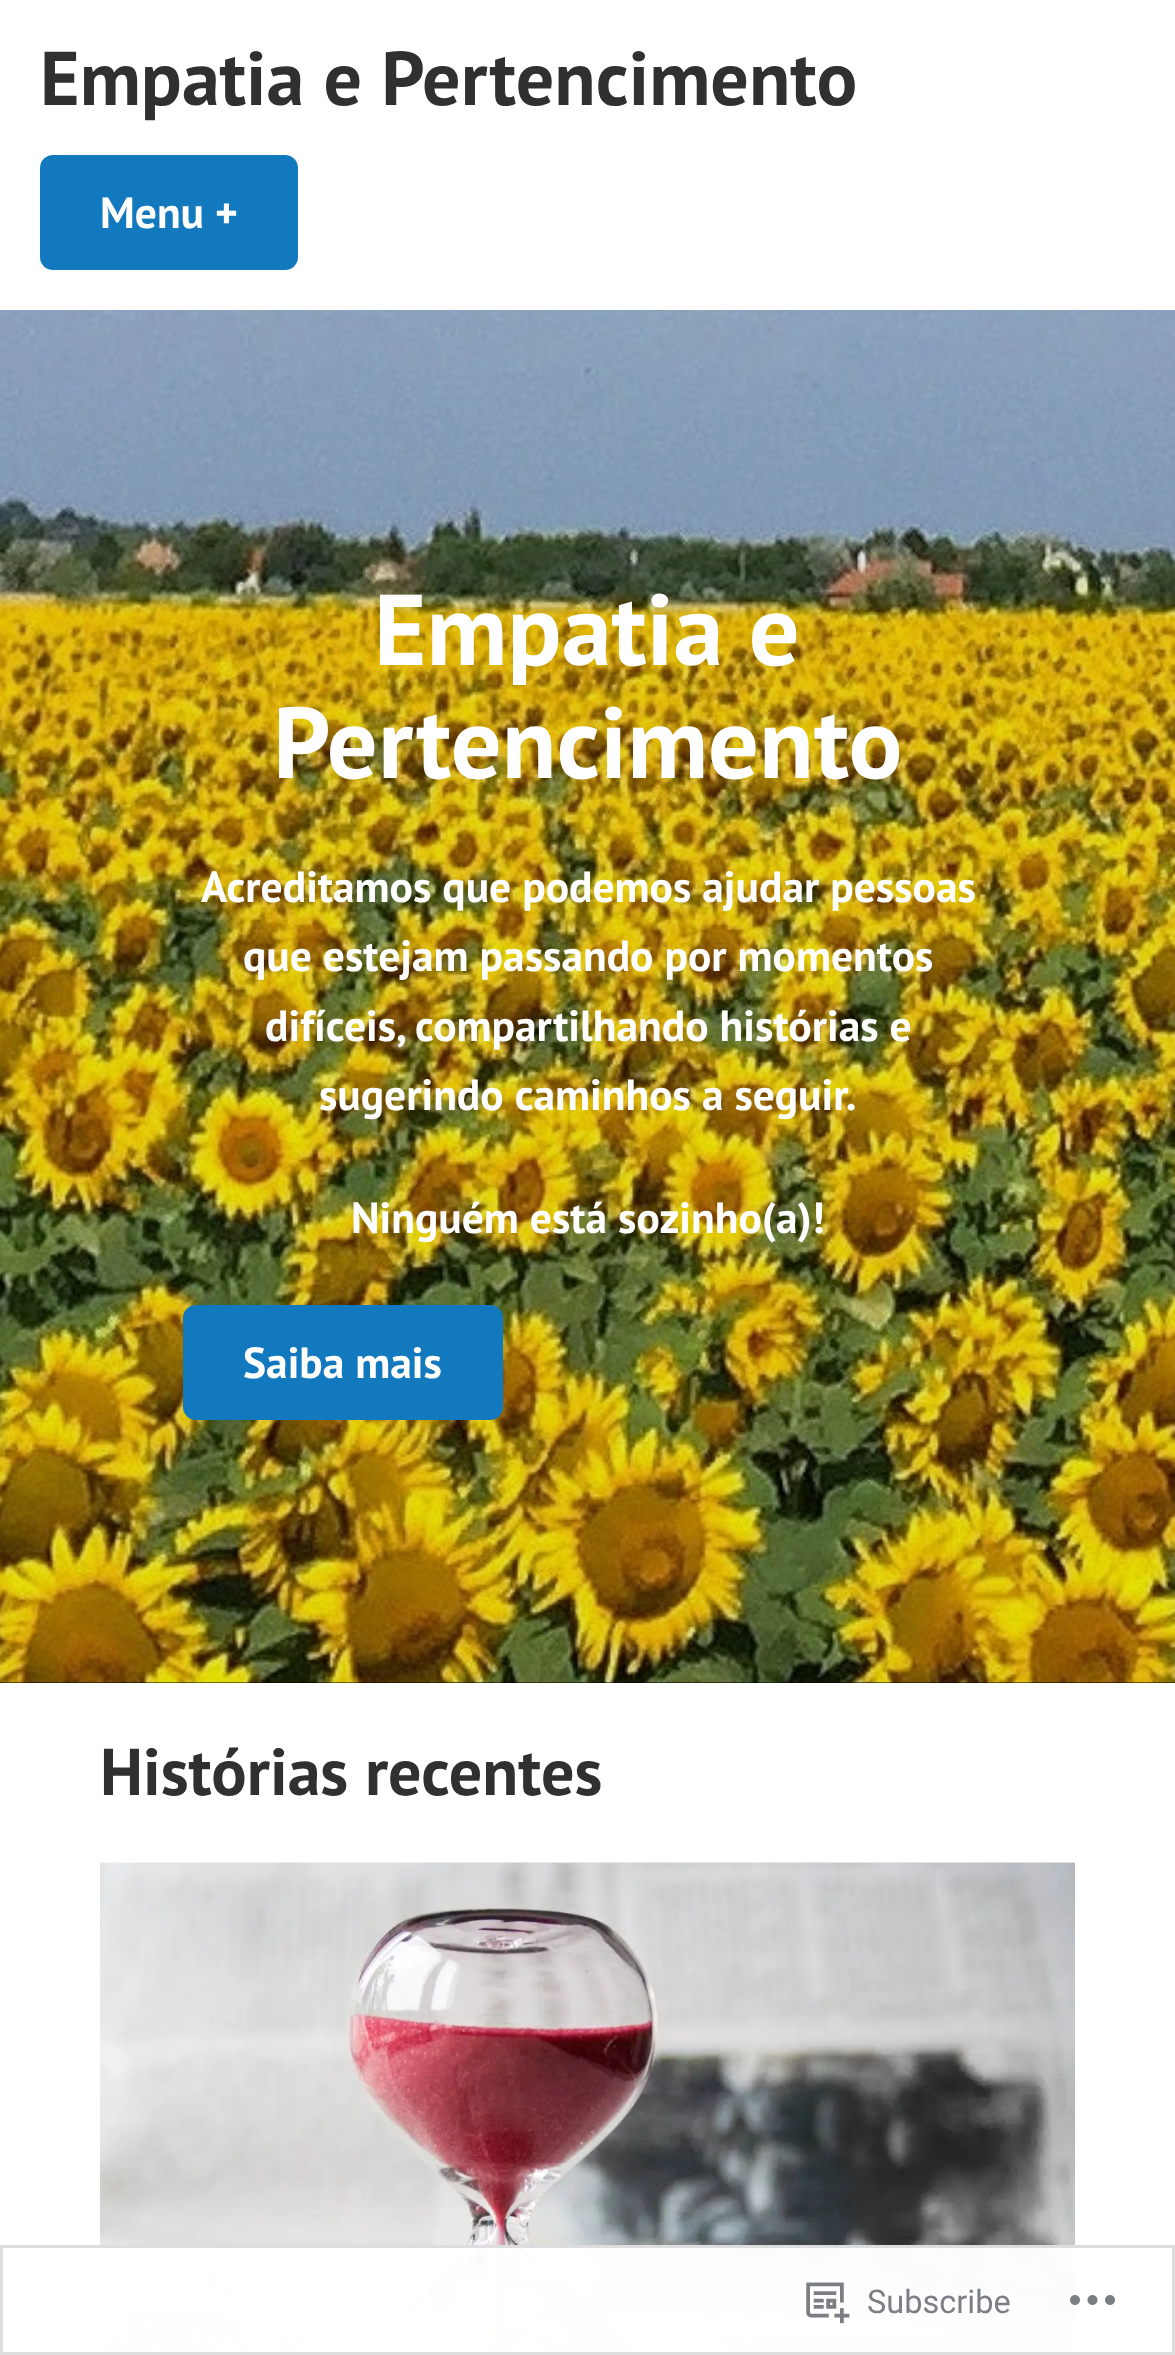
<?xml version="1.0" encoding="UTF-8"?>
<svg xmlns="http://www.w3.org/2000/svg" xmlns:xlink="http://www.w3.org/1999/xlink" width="1175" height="2355">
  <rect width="100%" height="100%" fill="#ffffff" />
  <rect x="40" y="155" width="258" height="115" rx="13" fill="#1279be" />
  <rect y="1682" width="1175" height="1" fill="#000000" />
  <image x="0" y="310" width="1175" height="1373" xlink:href="image1.png" />
  <rect x="183" y="1305" width="320" height="115" rx="13" fill="#1279be" />
  <image x="100" y="1862" width="975" height="493" xlink:href="image2.png" />
  <rect x="100" y="2245" width="975" height="110" fill="#ffffff" fill-opacity="0.98" />
  <rect x="1.5" y="2246.5" width="1172" height="107" fill="none" stroke="#dcdcde" stroke-opacity="0.98" stroke-width="3" />
  <image x="806" y="2282" width="44" height="42" xlink:href="image3.png" />
  <image x="1070" y="2295" width="45" height="10" xlink:href="image4.png" />
  <text x="40" y="105" style="font-family: PT Sans; font-size: 76px; font-weight: bold; fill: #303030">Empatia e Pertencimento</text>
  <text x="100" y="228" style="font-family: PT Sans; font-size: 43.5px; font-weight: bold; fill: #ffffff">Menu +</text>
  <text x="374" y="665" style="font-family: PT Sans; font-size: 100.5px; font-weight: bold; fill: #ffffff">Empatia e</text>
  <text x="273" y="778" style="font-family: PT Sans; font-size: 100.5px; font-weight: bold; fill: #ffffff">Pertencimento</text>
  <text x="201" y="902" style="font-family: PT Sans; font-size: 43.5px; font-weight: bold; fill: #ffffff">Acreditamos que podemos ajudar pessoas</text>
  <text x="243" y="971" style="font-family: PT Sans; font-size: 43.5px; font-weight: bold; fill: #ffffff">que estejam passando por momentos</text>
  <text x="265" y="1041" style="font-family: PT Sans; font-size: 43.5px; font-weight: bold; fill: #ffffff">difíceis, compartilhando histórias e</text>
  <text x="319" y="1110" style="font-family: PT Sans; font-size: 43.5px; font-weight: bold; fill: #ffffff">sugerindo caminhos a seguir.</text>
  <text x="351" y="1233" style="font-family: PT Sans; font-size: 43.5px; font-weight: bold; fill: #ffffff">Ninguém está sozinho(a)!</text>
  <text x="243" y="1378" style="font-family: PT Sans; font-size: 43.5px; font-weight: bold; fill: #ffffff">Saiba mais</text>
  <text x="100" y="1795" style="font-family: PT Sans; font-size: 66px; font-weight: bold; fill: #303030">Histórias recentes</text>
  <text x="867" y="2313" style="font-family: Roboto; font-size: 32.5px; fill: #7b7f84">Subscribe</text>
</svg>
